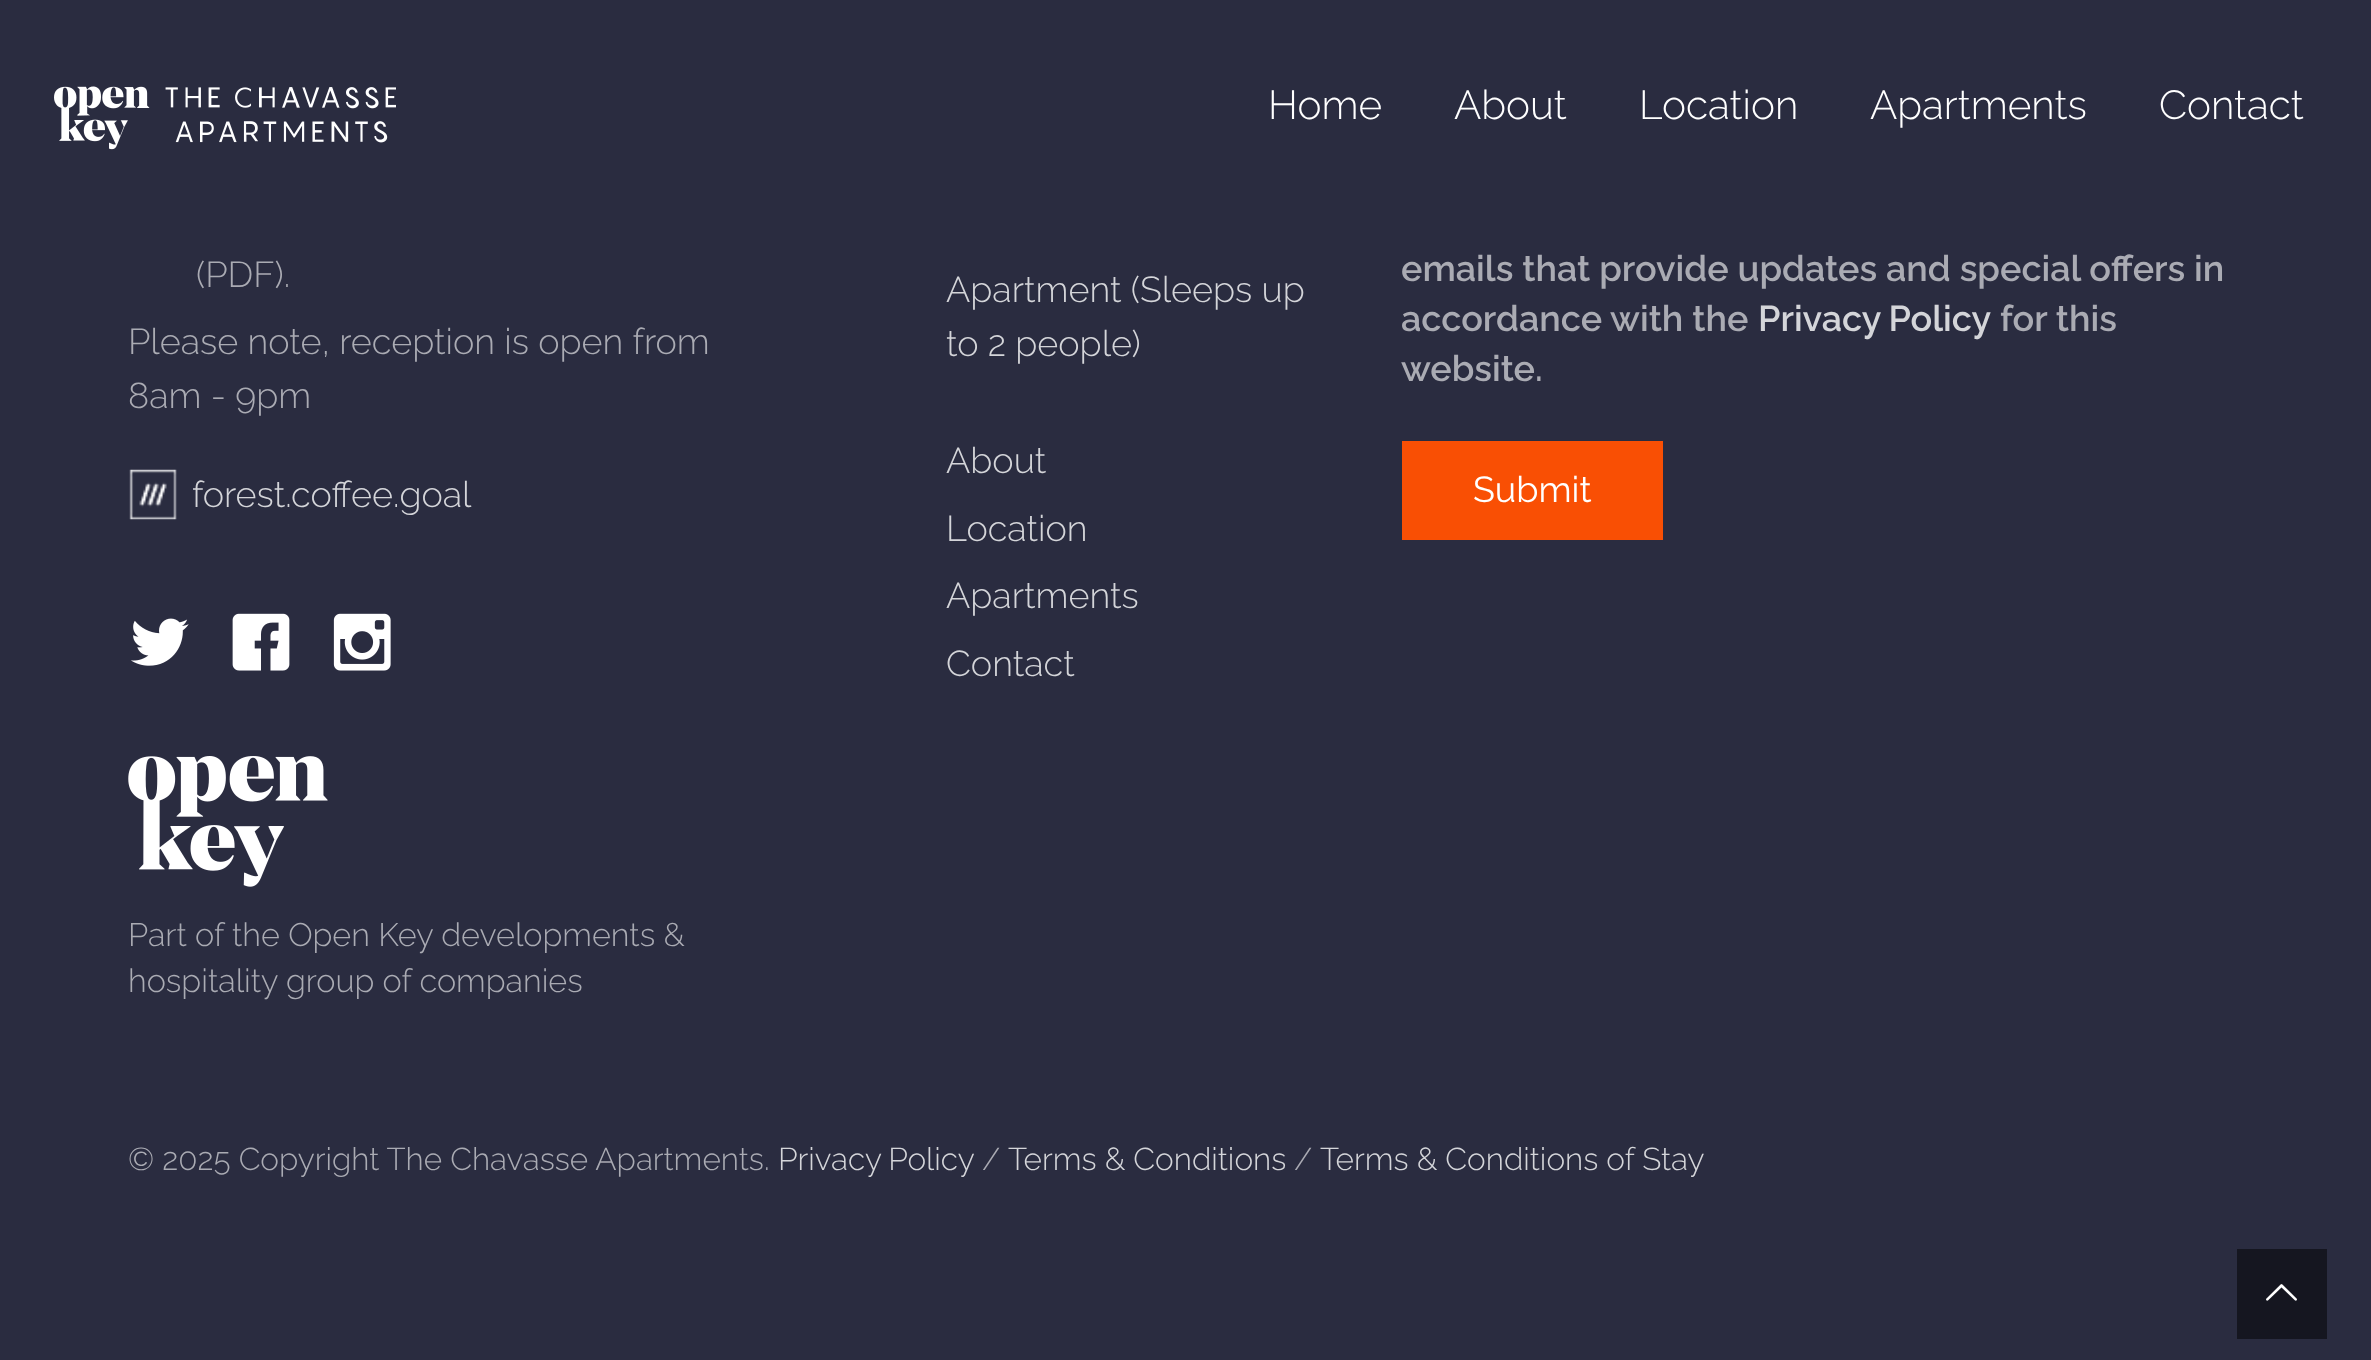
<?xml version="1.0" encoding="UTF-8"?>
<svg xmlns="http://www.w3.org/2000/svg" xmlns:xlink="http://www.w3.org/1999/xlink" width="2371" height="1360">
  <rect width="100%" height="100%" fill="#2a2c40" />
  <image x="54" y="86" width="342" height="64" xlink:href="image1.png" />
  <image x="129" y="469" width="48" height="51" xlink:href="image2.png" />
  <image x="131" y="618" width="58" height="48" xlink:href="image3.png" />
  <image x="232" y="613" width="58" height="58" xlink:href="image4.png" />
  <image x="333" y="613" width="58" height="58" xlink:href="image5.png" />
  <image x="128" y="756" width="200" height="131" xlink:href="image6.png" />
  <rect x="1402" y="441" width="261" height="99" fill="#f94f04" />
  <rect x="2237" y="1249" width="90" height="90" fill="#151620" />
  <image x="2266" y="1284" width="31" height="17" xlink:href="image7.png" />
  <text x="1268" y="119" style="font-family: Raleway; font-size: 40.5px; font-weight: 300; fill: #ffffff">Home</text>
  <text x="1454" y="119" style="font-family: Raleway; font-size: 40.5px; font-weight: 300; fill: #ffffff">About</text>
  <text x="1639" y="119" style="font-family: Raleway; font-size: 40.5px; font-weight: 300; fill: #ffffff">Location</text>
  <text x="1870" y="119" style="font-family: Raleway; font-size: 40.5px; font-weight: 300; fill: #ffffff">Apartments</text>
  <text x="2159" y="119" style="font-family: Raleway; font-size: 40.5px; font-weight: 300; fill: #ffffff">Contact</text>
  <text x="196" y="287" style="font-family: Raleway; font-size: 36px; font-weight: 300; fill: #aaabb3">(PDF).</text>
  <text x="128" y="354" style="font-family: Raleway; font-size: 36px; font-weight: 300; fill: #aaabb3">Please note, reception is open from</text>
  <text x="128" y="408" style="font-family: Raleway; font-size: 36px; font-weight: 300; fill: #aaabb3">8am - 9pm</text>
  <text x="192" y="507" style="font-family: Raleway; font-size: 36px; font-weight: 300; fill: #d4d5d9">forest.coffee.goal</text>
  <text x="128" y="946" style="font-family: Raleway; font-size: 32.4px; font-weight: 300; fill: #aaabb3">Part of the Open Key developments &amp;</text>
  <text x="128" y="992" style="font-family: Raleway; font-size: 32.4px; font-weight: 300; fill: #aaabb3">hospitality group of companies</text>
  <text x="946" y="302" style="font-family: Raleway; font-size: 36px; font-weight: 300; fill: #d4d5d9">Apartment (Sleeps up</text>
  <text x="946" y="356" style="font-family: Raleway; font-size: 36px; font-weight: 300; fill: #d4d5d9">to 2 people)</text>
  <text x="946" y="473" style="font-family: Raleway; font-size: 36px; font-weight: 300; fill: #d4d5d9">About</text>
  <text x="946" y="541" style="font-family: Raleway; font-size: 36px; font-weight: 300; fill: #d4d5d9">Location</text>
  <text x="946" y="608" style="font-family: Raleway; font-size: 36px; font-weight: 300; fill: #d4d5d9">Apartments</text>
  <text x="946" y="676" style="font-family: Raleway; font-size: 36px; font-weight: 300; fill: #d4d5d9">Contact</text>
  <text x="1401" y="281" style="font-family: Raleway; font-size: 36px; font-weight: 600; fill: #aaabb3">emails that provide updates and special offers in</text>
  <text x="1401" y="331" style="font-family: Raleway; font-size: 36px; font-weight: 600; fill: #aaabb3">accordance with the</text>
  <text x="1758" y="331" word-spacing="-1" style="font-family: Raleway; font-size: 36px; font-weight: 600; fill: #d4d5d9">Privacy Policy</text>
  <text x="2000" y="331" style="font-family: Raleway; font-size: 36px; font-weight: 600; fill: #aaabb3">for this</text>
  <text x="1401" y="381" style="font-family: Raleway; font-size: 36px; font-weight: 600; fill: #aaabb3">website.</text>
  <text x="1473" y="502" style="font-family: Raleway; font-size: 36px; fill: #ffffff">Submit</text>
  <text x="128" y="1170" style="font-family: Raleway; font-size: 31.5px; font-weight: 300; fill: #aaabb3">© 2025 Copyright The Chavasse Apartments.</text>
  <text x="778" y="1170" word-spacing="-1" style="font-family: Raleway; font-size: 31.5px; font-weight: 300; fill: #d4d5d9">Privacy Policy</text>
  <text x="982" y="1170" style="font-family: Raleway; font-size: 31.5px; font-weight: 300; fill: #aaabb3">/</text>
  <text x="1008" y="1170" style="font-family: Raleway; font-size: 31.5px; font-weight: 300; fill: #d4d5d9">Terms &amp; Conditions</text>
  <text x="1294" y="1170" style="font-family: Raleway; font-size: 31.5px; font-weight: 300; fill: #aaabb3">/</text>
  <text x="1320" y="1170" style="font-family: Raleway; font-size: 31.5px; font-weight: 300; fill: #d4d5d9">Terms &amp; Conditions of Stay</text>
</svg>
